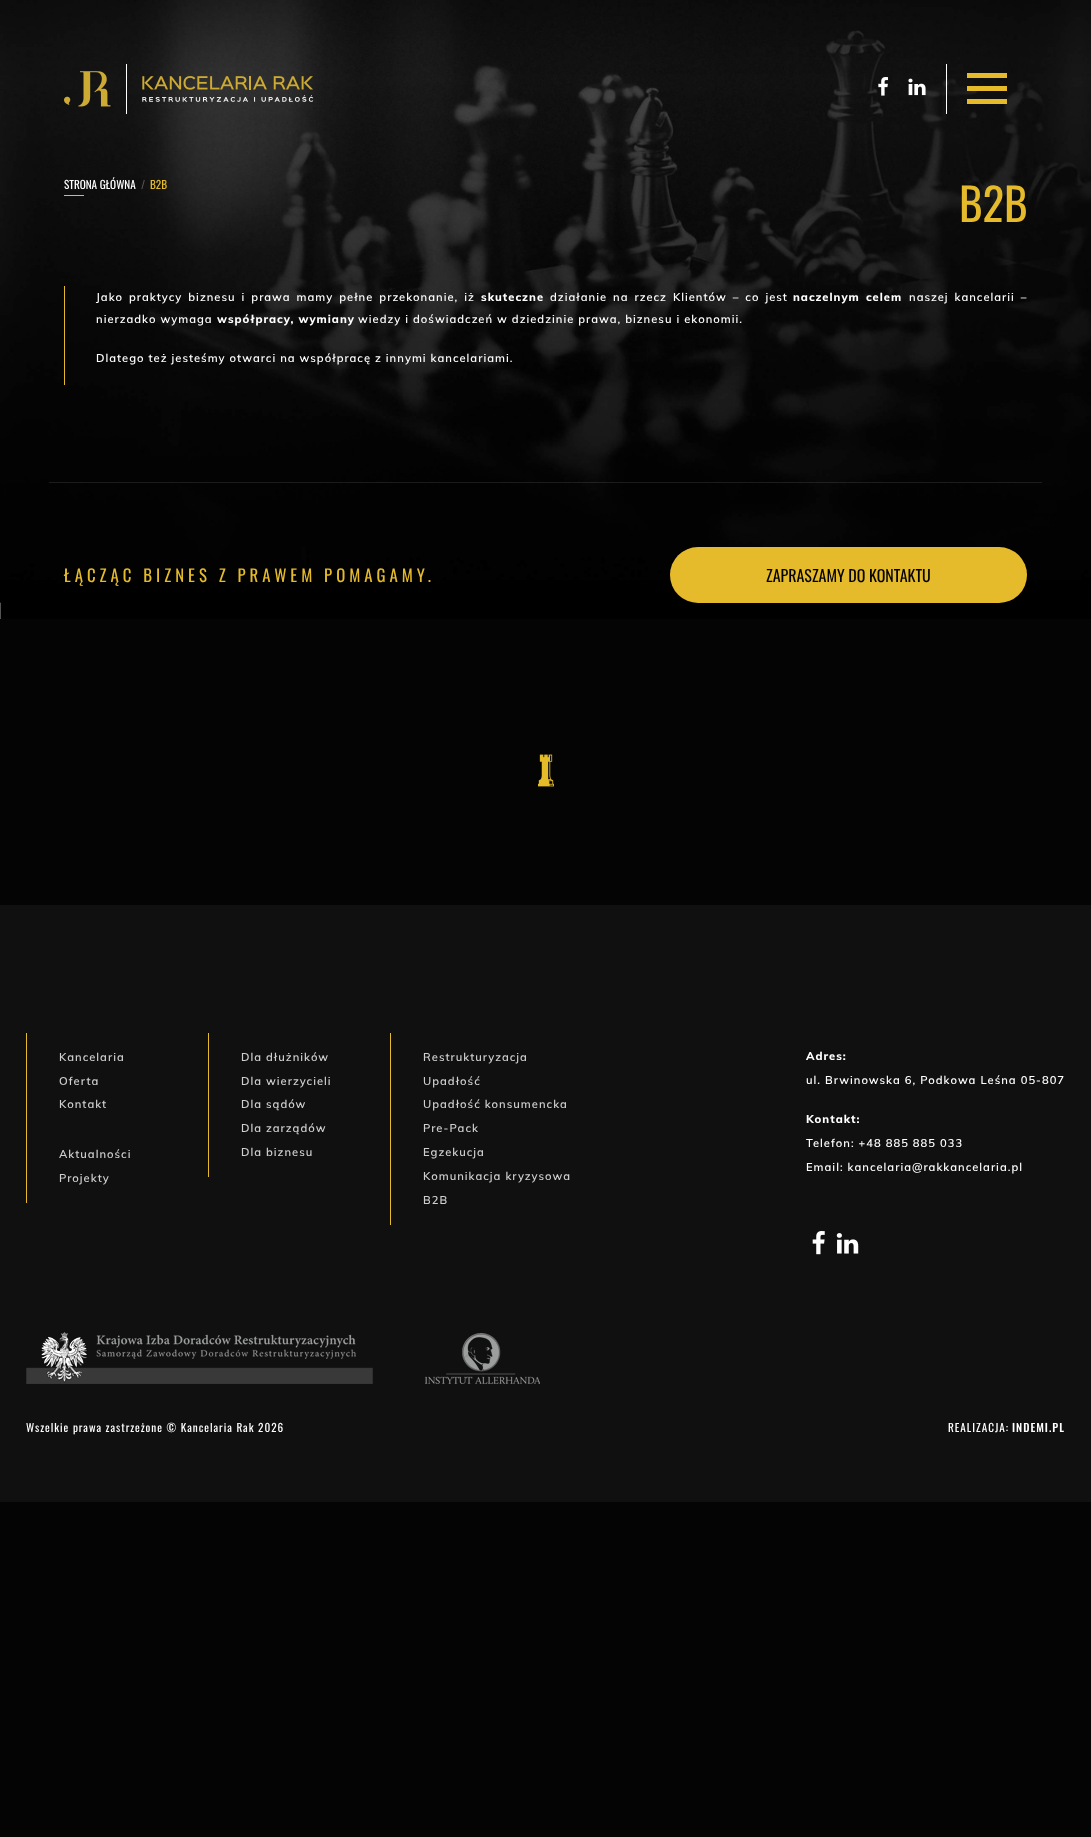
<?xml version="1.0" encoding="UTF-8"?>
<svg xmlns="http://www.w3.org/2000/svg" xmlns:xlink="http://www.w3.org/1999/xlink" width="1091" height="1837">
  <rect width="100%" height="100%" fill="#040404" />
  <image x="0" y="0" width="1091" height="619" xlink:href="image4.png" />
  <image x="64" y="64" width="250" height="50" xlink:href="image1.png" />
  <image x="878" y="77" width="10" height="19" xlink:href="image2.png" />
  <image x="908" y="78" width="18" height="18" xlink:href="image3.png" />
  <rect x="946" y="64" width="1" height="50" fill="#ffffff" />
  <rect x="967" y="73" width="40" height="5" fill="#e6bb2b" />
  <rect x="967" y="86" width="40" height="5" fill="#e6bb2b" />
  <rect x="967" y="99" width="40" height="5" fill="#e6bb2b" />
  <rect x="64" y="195" width="20" height="1" fill="#e6bb2b" />
  <rect x="64" y="286" width="1" height="99" fill="#e6bb2b" />
  <rect x="49" y="482" width="993" height="1" fill="#ffffff" fill-opacity="0.1" />
  <rect x="670" y="547" width="357" height="56" rx="28" fill="#e6bb2b" />
  <image x="538" y="754" width="16" height="33" xlink:href="image5.png" />
  <rect y="905" width="1091" height="597" fill="#101010" />
  <rect x="26" y="1033" width="1" height="170" fill="#e6bb2b" />
  <rect x="208" y="1033" width="1" height="144" fill="#e6bb2b" />
  <rect x="390" y="1033" width="1" height="192" fill="#e6bb2b" />
  <image x="812" y="1231" width="13" height="24" xlink:href="image6.png" />
  <image x="836" y="1233" width="23" height="21" xlink:href="image7.png" />
  <image x="26" y="1332" width="347" height="52" xlink:href="image8.png" />
  <image x="425" y="1333" width="115" height="51" xlink:href="image9.png" />
  <text x="64" y="189" style="font-family: Oswald; font-size: 11.2px; fill: #ffffff">STRONA GŁÓWNA</text>
  <text x="141" y="189" style="font-family: Oswald; font-size: 11.2px; fill: #555555">/</text>
  <text x="150" y="189" style="font-family: Oswald; font-size: 11.2px; fill: #e6bb2b">B2B</text>
  <text x="959" y="222" style="font-family: Oswald; font-size: 45px; fill: #e6bb2b">B2B</text>
  <text x="96" y="301" word-spacing="2" style="font-family: Muli; font-size: 11.2px; font-weight: 600; letter-spacing: 1px; fill: #ffffff">Jako praktycy biznesu i prawa mamy pełne przekonanie, iż</text>
  <text x="481" y="301" style="font-family: Muli; font-size: 11.2px; font-weight: 800; letter-spacing: 1px; fill: #ffffff">skuteczne</text>
  <text x="550" y="301" word-spacing="2" style="font-family: Muli; font-size: 11.2px; font-weight: 600; letter-spacing: 1px; fill: #ffffff">działanie na rzecz Klientów – co jest</text>
  <text x="793" y="301" word-spacing="2" style="font-family: Muli; font-size: 11.2px; font-weight: 800; letter-spacing: 1px; fill: #ffffff">naczelnym celem</text>
  <text x="909" y="301" word-spacing="2" style="font-family: Muli; font-size: 11.2px; font-weight: 600; letter-spacing: 1px; fill: #ffffff">naszej kancelarii –</text>
  <text x="96" y="323" style="font-family: Muli; font-size: 11.2px; font-weight: 600; letter-spacing: 1px; fill: #ffffff">nierzadko wymaga</text>
  <text x="217" y="323" style="font-family: Muli; font-size: 11.2px; font-weight: 800; letter-spacing: 1px; fill: #ffffff">współpracy, wymiany</text>
  <text x="358" y="323" style="font-family: Muli; font-size: 11.2px; font-weight: 600; letter-spacing: 1px; fill: #ffffff">wiedzy i doświadczeń w dziedzinie prawa, biznesu i ekonomii.</text>
  <text x="96" y="362" style="font-family: Muli; font-size: 11.2px; font-weight: 600; letter-spacing: 1px; fill: #ffffff">Dlatego też jesteśmy otwarci na współpracę z innymi kancelariami.</text>
  <text x="64" y="582" style="font-family: Oswald; font-size: 16.8px; letter-spacing: 4px; fill: #e6bb2b">ŁĄCZĄC BIZNES Z PRAWEM POMAGAMY.</text>
  <text x="766" y="582" style="font-family: Oswald; font-size: 16px; fill: #040404">ZAPRASZAMY DO KONTAKTU</text>
  <text x="59" y="1061" style="font-family: Muli; font-size: 11.2px; font-weight: 600; letter-spacing: 1px; fill: #cfcfcf">Kancelaria</text>
  <text x="59" y="1085" style="font-family: Muli; font-size: 11.2px; font-weight: 600; letter-spacing: 1px; fill: #cfcfcf">Oferta</text>
  <text x="59" y="1108" style="font-family: Muli; font-size: 11.2px; font-weight: 600; letter-spacing: 1px; fill: #cfcfcf">Kontakt</text>
  <text x="59" y="1158" style="font-family: Muli; font-size: 11.2px; font-weight: 600; letter-spacing: 1px; fill: #cfcfcf">Aktualności</text>
  <text x="59" y="1182" style="font-family: Muli; font-size: 11.2px; font-weight: 600; letter-spacing: 1px; fill: #cfcfcf">Projekty</text>
  <text x="241" y="1061" style="font-family: Muli; font-size: 11.2px; font-weight: 600; letter-spacing: 1px; fill: #cfcfcf">Dla dłużników</text>
  <text x="241" y="1085" style="font-family: Muli; font-size: 11.2px; font-weight: 600; letter-spacing: 1px; fill: #cfcfcf">Dla wierzycieli</text>
  <text x="241" y="1108" style="font-family: Muli; font-size: 11.2px; font-weight: 600; letter-spacing: 1px; fill: #cfcfcf">Dla sądów</text>
  <text x="241" y="1132" style="font-family: Muli; font-size: 11.2px; font-weight: 600; letter-spacing: 1px; fill: #cfcfcf">Dla zarządów</text>
  <text x="241" y="1156" style="font-family: Muli; font-size: 11.2px; font-weight: 600; letter-spacing: 1px; fill: #cfcfcf">Dla biznesu</text>
  <text x="423" y="1061" style="font-family: Muli; font-size: 11.2px; font-weight: 600; letter-spacing: 1px; fill: #cfcfcf">Restrukturyzacja</text>
  <text x="423" y="1085" style="font-family: Muli; font-size: 11.2px; font-weight: 600; letter-spacing: 1px; fill: #cfcfcf">Upadłość</text>
  <text x="423" y="1108" style="font-family: Muli; font-size: 11.2px; font-weight: 600; letter-spacing: 1px; fill: #cfcfcf">Upadłość konsumencka</text>
  <text x="423" y="1132" style="font-family: Muli; font-size: 11.2px; font-weight: 600; letter-spacing: 1px; fill: #cfcfcf">Pre-Pack</text>
  <text x="423" y="1156" style="font-family: Muli; font-size: 11.2px; font-weight: 600; letter-spacing: 1px; fill: #cfcfcf">Egzekucja</text>
  <text x="423" y="1180" style="font-family: Muli; font-size: 11.2px; font-weight: 600; letter-spacing: 1px; fill: #cfcfcf">Komunikacja kryzysowa</text>
  <text x="423" y="1204" style="font-family: Muli; font-size: 11.2px; font-weight: 600; letter-spacing: 1px; fill: #cfcfcf">B2B</text>
  <text x="806" y="1060" style="font-family: Muli; font-size: 11.2px; font-weight: 800; letter-spacing: 1px; fill: #ffffff">Adres:</text>
  <text x="806" y="1084" style="font-family: Muli; font-size: 11.2px; font-weight: 600; letter-spacing: 1px; fill: #ffffff">ul. Brwinowska 6, Podkowa Leśna 05-807</text>
  <text x="806" y="1123" style="font-family: Muli; font-size: 11.2px; font-weight: 800; letter-spacing: 1px; fill: #ffffff">Kontakt:</text>
  <text x="806" y="1147" style="font-family: Muli; font-size: 11.2px; font-weight: 600; letter-spacing: 1px; fill: #ffffff">Telefon: +48 885 885 033</text>
  <text x="806" y="1171" style="font-family: Muli; font-size: 11.2px; font-weight: 600; letter-spacing: 1px; fill: #ffffff">Email: kancelaria@rakkancelaria.pl</text>
  <text x="26" y="1432" style="font-family: Oswald; font-size: 11.2px; letter-spacing: 1px; fill: #ffffff">Wszelkie prawa zastrzeżone © Kancelaria Rak 2026</text>
  <text x="948" y="1432" style="font-family: Oswald; font-size: 11.2px; letter-spacing: 1px; fill: #ffffff">REALIZACJA:</text>
  <text x="1012" y="1432" style="font-family: Oswald; font-size: 11.2px; font-weight: 500; letter-spacing: 1px; fill: #ffffff">INDEMI.PL</text>
</svg>
